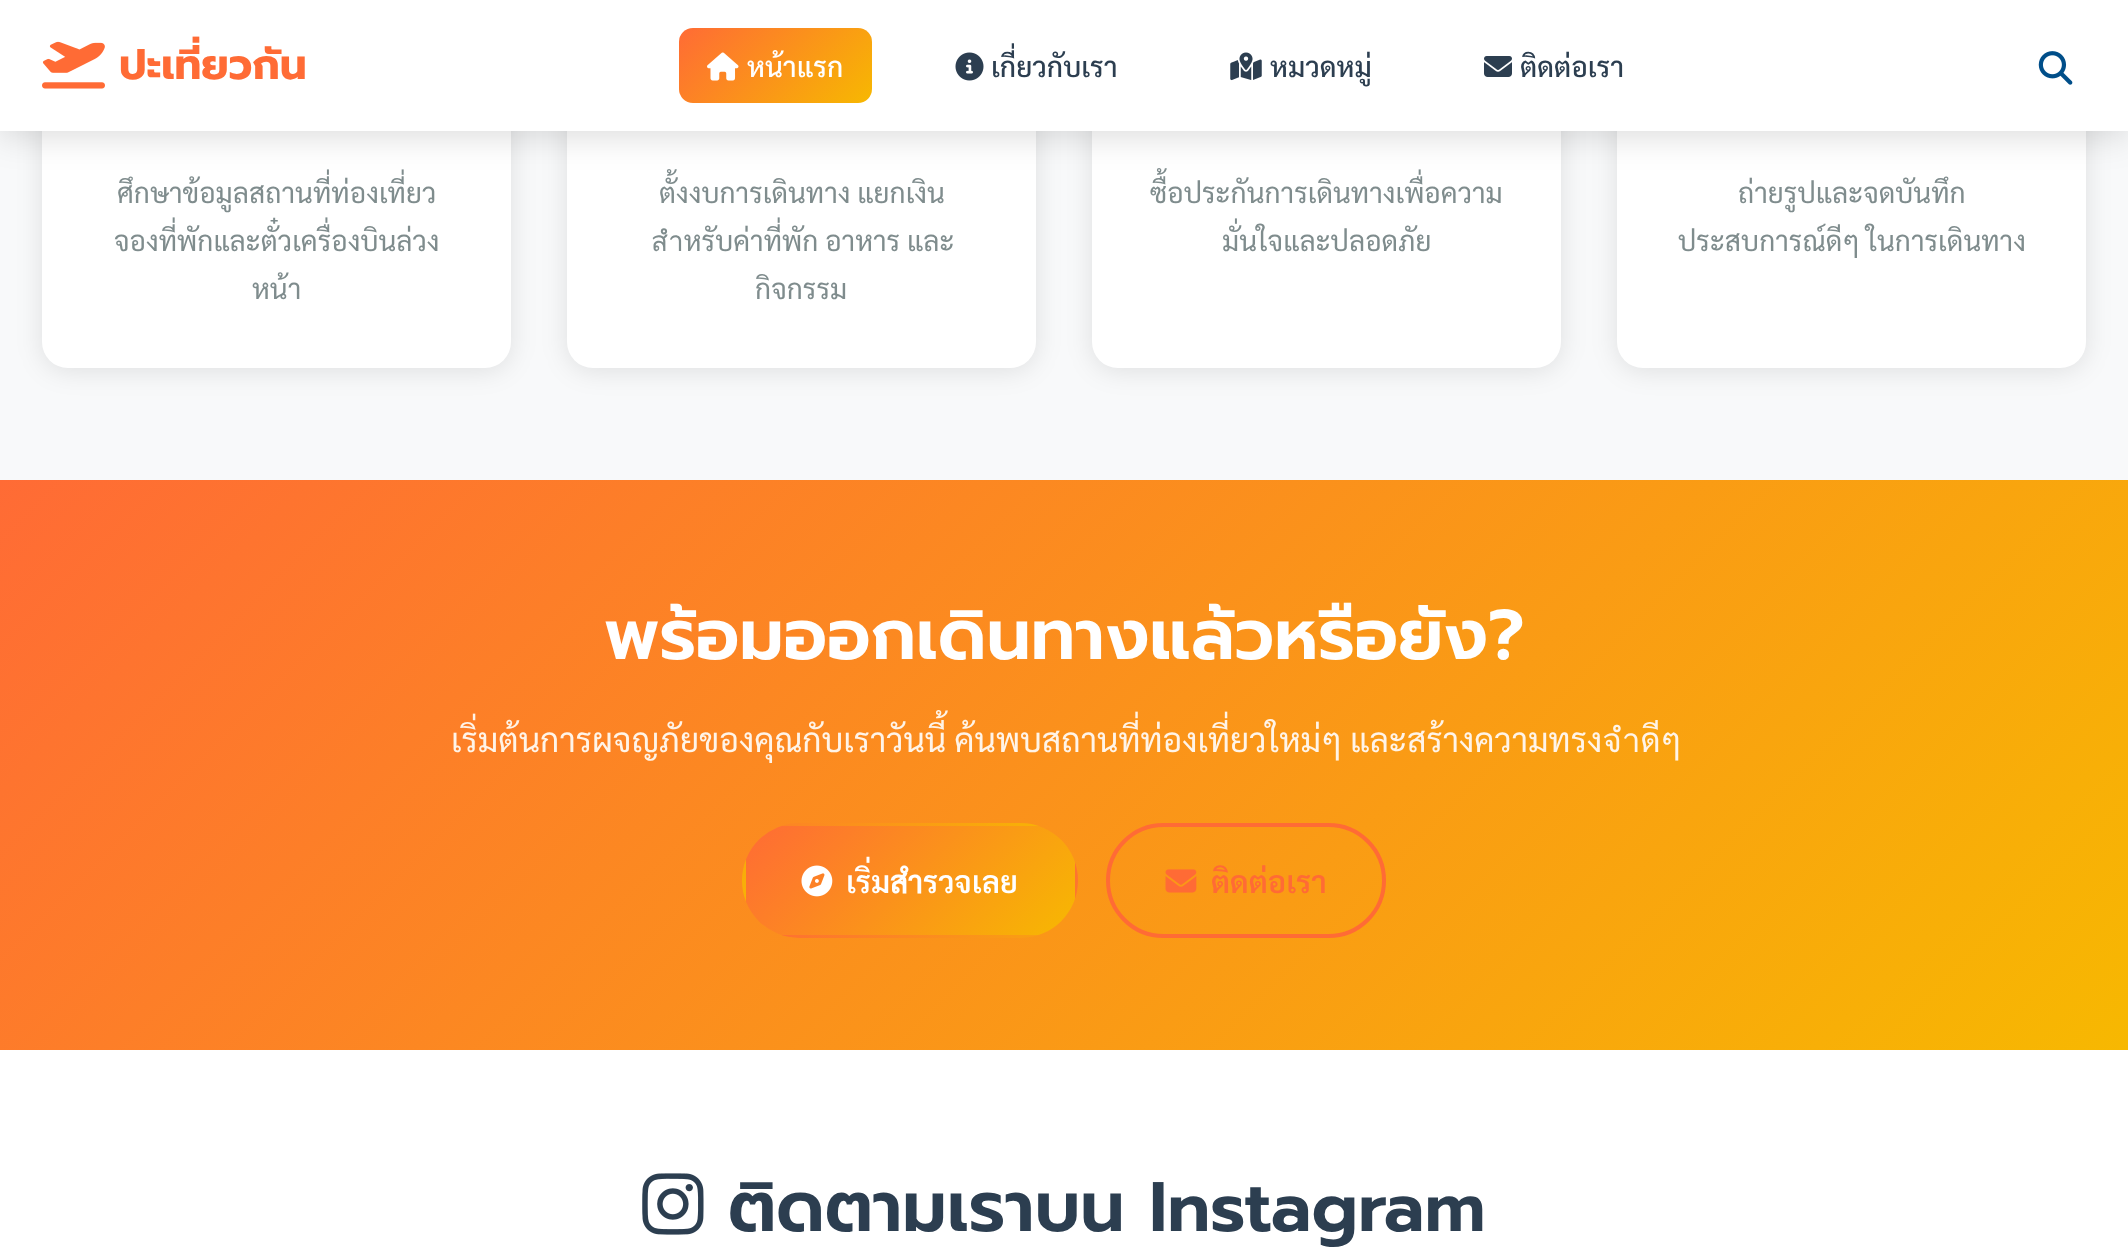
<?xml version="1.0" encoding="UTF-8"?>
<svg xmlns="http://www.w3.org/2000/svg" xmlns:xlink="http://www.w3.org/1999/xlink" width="2128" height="1257">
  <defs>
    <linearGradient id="g1" gradientUnits="userSpaceOnUse" x1="708" y1="-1.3" x2="842" y2="133"><stop offset="0" stop-color="#ff6b35" /><stop offset="1" stop-color="#f7b801" /></linearGradient>
    <linearGradient id="g2" gradientUnits="userSpaceOnUse" x1="389" y1="90" x2="1739" y2="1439"><stop offset="0" stop-color="#ff6b35" /><stop offset="1" stop-color="#f7b801" /></linearGradient>
    <clipPath id="clip1"><rect x="742" y="823" width="336" height="115" rx="57.5" /></clipPath>
    <linearGradient id="g3" gradientUnits="userSpaceOnUse" x1="801" y1="662" x2="1019" y2="881"><stop offset="0" stop-color="#ff6b35" /><stop offset="1" stop-color="#f7b801" /></linearGradient>
    <linearGradient id="g4" gradientUnits="userSpaceOnUse" x1="472" y1="771" x2="690" y2="990"><stop offset="0" stop-color="#ff6b35" /><stop offset="1" stop-color="#f7b801" /></linearGradient>
    <linearGradient id="g5" gradientUnits="userSpaceOnUse" x1="801" y1="771" x2="1019" y2="990"><stop offset="0" stop-color="#ff6b35" /><stop offset="1" stop-color="#f7b801" /></linearGradient>
    <linearGradient id="g6" gradientUnits="userSpaceOnUse" x1="1130" y1="771" x2="1348" y2="990"><stop offset="0" stop-color="#ff6b35" /><stop offset="1" stop-color="#f7b801" /></linearGradient>
    <linearGradient id="g7" gradientUnits="userSpaceOnUse" x1="801" y1="879" x2="1019" y2="1098"><stop offset="0" stop-color="#ff6b35" /><stop offset="1" stop-color="#f7b801" /></linearGradient>
  </defs>
  <rect width="100%" height="100%" fill="#ffffff" />
  <rect y="131" width="2128" height="349" fill="#f8f9fa" />
  <rect x="42" y="-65" width="469" height="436" rx="26" fill="#000000" fill-opacity="0.1" filter="blur(13px)" />
  <rect x="42" y="-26" width="469" height="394" rx="26" fill="#ffffff" />
  <rect x="567" y="-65" width="469" height="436" rx="26" fill="#000000" fill-opacity="0.1" filter="blur(13px)" />
  <rect x="567" y="-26" width="469" height="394" rx="26" fill="#ffffff" />
  <rect x="1092" y="-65" width="469" height="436" rx="26" fill="#000000" fill-opacity="0.1" filter="blur(13px)" />
  <rect x="1092" y="-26" width="469" height="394" rx="26" fill="#ffffff" />
  <rect x="1617" y="-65" width="469" height="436" rx="26" fill="#000000" fill-opacity="0.1" filter="blur(13px)" />
  <rect x="1617" y="-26" width="469" height="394" rx="26" fill="#ffffff" />
  <rect y="4" width="2128" height="131" fill="#000000" fill-opacity="0.15" filter="blur(17.5px)" />
  <rect width="2128" height="131" fill="#ffffff" />
  <image x="42" y="41" width="63" height="48" xlink:href="image1.png" />
  <rect x="679" y="28" width="193" height="75" rx="14" fill="url(#g1)" />
  <image x="707" y="52" width="32" height="29" xlink:href="image2.png" />
  <image x="955" y="52" width="29" height="29" xlink:href="image3.png" />
  <image x="1230" y="52" width="32" height="29" xlink:href="image4.png" />
  <image x="1484" y="56" width="28" height="21" xlink:href="image5.png" />
  <image x="2038" y="51" width="35" height="34" xlink:href="image6.png" />
  <rect y="480" width="2128" height="570" fill="url(#g2)" />
  <g clip-path="url(#clip1)">
    <rect x="781" y="823" width="258" height="3" fill="url(#g3)" />
    <rect x="742" y="859" width="4" height="43" fill="url(#g4)" />
    <rect x="746" y="826" width="329" height="109" fill="url(#g5)" />
    <rect x="1075" y="862" width="3" height="37" fill="url(#g6)" />
    <rect x="781" y="935" width="258" height="3" fill="url(#g7)" />
  </g>
  <image x="801" y="865" width="32" height="32" xlink:href="image7.png" />
  <rect x="1108" y="825" width="276" height="111" rx="55.5" fill="none" stroke="#ff6b35" stroke-width="4" />
  <image x="1165" y="869" width="32" height="24" xlink:href="image8.png" />
  <image x="642" y="1173" width="62" height="62" xlink:href="image9.png" />
  <text x="119" y="79" style="font-family: Prompt; font-size: 42px; font-weight: bold; fill: #ff6b35">ปะเที่ยวกัน</text>
  <text x="747" y="77" style="font-family: Sarabun; font-size: 28px; font-weight: 500; fill: #ffffff">หน้าแรก</text>
  <text x="991" y="77" style="font-family: Sarabun; font-size: 28px; font-weight: 500; fill: #2c3e50">เกี่ยวกับเรา</text>
  <text x="1270" y="77" style="font-family: Sarabun; font-size: 28px; font-weight: 500; fill: #2c3e50">หมวดหมู่</text>
  <text x="1520" y="77" style="font-family: Sarabun; font-size: 28px; font-weight: 500; fill: #2c3e50">ติดต่อเรา</text>
  <text x="117" y="203" style="font-family: Sarabun; font-size: 28px; fill: #7f8c8d">ศึกษาข้อมูลสถานที่ท่องเที่ยว</text>
  <text x="114" y="251" style="font-family: Sarabun; font-size: 28px; fill: #7f8c8d">จองที่พักและตั๋วเครื่องบินล่วง</text>
  <text x="252" y="299" style="font-family: Sarabun; font-size: 28px; fill: #7f8c8d">หน้า</text>
  <text x="659" y="203" style="font-family: Sarabun; font-size: 28px; fill: #7f8c8d">ตั้งงบการเดินทาง แยกเงิน</text>
  <text x="651" y="251" style="font-family: Sarabun; font-size: 28px; fill: #7f8c8d">สำหรับค่าที่พัก อาหาร และ</text>
  <text x="755" y="299" style="font-family: Sarabun; font-size: 28px; fill: #7f8c8d">กิจกรรม</text>
  <text x="1150" y="203" style="font-family: Sarabun; font-size: 28px; fill: #7f8c8d">ซื้อประกันการเดินทางเพื่อความ</text>
  <text x="1222" y="251" style="font-family: Sarabun; font-size: 28px; fill: #7f8c8d">มั่นใจและปลอดภัย</text>
  <text x="1738" y="203" style="font-family: Sarabun; font-size: 28px; fill: #7f8c8d">ถ่ายรูปและจดบันทึก</text>
  <text x="1678" y="251" style="font-family: Sarabun; font-size: 28px; fill: #7f8c8d">ประสบการณ์ดีๆ ในการเดินทาง</text>
  <text x="604" y="659" style="font-family: Prompt; font-size: 70px; font-weight: 600; fill: #ffffff">พร้อมออกเดินทางแล้วหรือยัง?</text>
  <text x="451" y="752" style="font-family: Sarabun; font-size: 33.6px; fill: #fff4e8">เริ่มต้นการผจญภัยของคุณกับเราวันนี้ ค้นพบสถานที่ท่องเที่ยวใหม่ๆ และสร้างความทรงจำดีๆ</text>
  <text x="846" y="893" style="font-family: Sarabun; font-size: 30.75px; font-weight: 600; fill: #ffffff">เริ่มสำรวจเลย</text>
  <text x="1211" y="893" style="font-family: Sarabun; font-size: 30.75px; font-weight: 600; fill: #ff6b35">ติดต่อเรา</text>
  <text x="728" y="1231" style="font-family: Prompt; font-size: 70px; font-weight: 600; fill: #2c3e50">ติดตามเราบน Instagram</text>
</svg>
